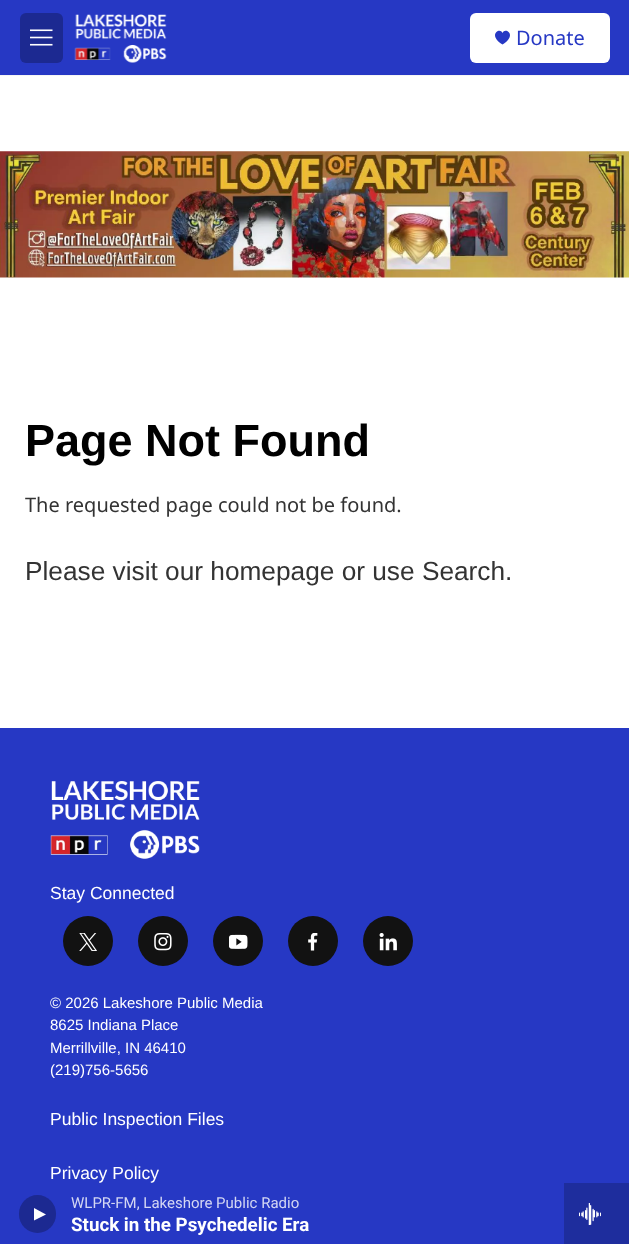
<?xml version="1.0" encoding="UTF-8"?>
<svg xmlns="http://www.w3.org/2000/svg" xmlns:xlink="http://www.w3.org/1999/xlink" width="629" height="1244">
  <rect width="100%" height="100%" fill="#ffffff" />
  <rect width="629" height="75" fill="#2638c4" />
  <rect y="75" width="629" height="1" fill="#f5f5f5" />
  <rect x="20" y="13" width="43" height="50" rx="6" fill="#1c2991" />
  <image x="30" y="29" width="23" height="17" xlink:href="image1.png" />
  <image x="74" y="14" width="93" height="49" xlink:href="image2.png" />
  <rect x="470" y="13" width="140" height="50" rx="6" fill="#ffffff" />
  <path d="M 502.5 33 c -2.5 -6.5 -15.5 2 0 11.5 c 15.5 -9.5 2.5 -18 0 -11.5 z" fill="#2638c4" />
  <rect y="1183" width="564" height="61" fill="#2638c4" />
  <rect x="19" y="1195" width="37" height="38" rx="18.5" fill="#1c2991" />
  <path d="M 34 1208 l 12 6.5 l -12 6 z" fill="#ffffff" />
  <rect x="564" y="1183" width="65" height="61" fill="#1e2d9d" />
  <image x="579" y="1203" width="22" height="22" xlink:href="image3.png" />
  <image x="0" y="151" width="629" height="127" xlink:href="image4.png" />
  <rect y="728" width="629" height="455" fill="#2638c4" />
  <image x="50" y="781" width="150" height="78" xlink:href="image5.png" />
  <circle cx="88" cy="941" r="25" fill="#121212" />
  <image x="79" y="933" width="18" height="18" xlink:href="image6.png" />
  <circle cx="163" cy="941" r="25" fill="#121212" />
  <image x="154" y="933" width="18" height="18" xlink:href="image7.png" />
  <circle cx="238" cy="941" r="25" fill="#121212" />
  <image x="229" y="934" width="19" height="15" xlink:href="image8.png" />
  <circle cx="313" cy="941" r="25" fill="#121212" />
  <image x="308" y="933" width="10" height="18" xlink:href="image9.png" />
  <circle cx="388" cy="941" r="25" fill="#121212" />
  <image x="379" y="933" width="18" height="18" xlink:href="image10.png" />
  <text x="516" y="45" style="font-family: Noto Sans; font-size: 20px; fill: #2638c4">Donate</text>
  <text x="71" y="1208" style="font-family: Roboto; font-size: 15px; fill: #d4d7f3">WLPR-FM, Lakeshore Public Radio</text>
  <text x="71" y="1231" style="font-family: Roboto; font-size: 18.75px; font-weight: bold; fill: #ffffff">Stuck in the Psychedelic Era</text>
  <text x="25" y="456" style="font-family: Liberation Sans; font-size: 45px; font-weight: bold; fill: #000000">Page Not Found</text>
  <text x="25" y="512" style="font-family: Noto Sans; font-size: 20px; fill: #333333">The requested page could not be found.</text>
  <text x="25" y="580" style="font-family: Liberation Sans; font-size: 26.25px; fill: #333333">Please visit our homepage or use Search.</text>
  <text x="50" y="899" style="font-family: Liberation Sans; font-size: 17.5px; fill: #ffffff">Stay Connected</text>
  <text x="50" y="1008" style="font-family: Liberation Sans; font-size: 15px; fill: #ffffff">© 2026 Lakeshore Public Media</text>
  <text x="50" y="1030" style="font-family: Liberation Sans; font-size: 15px; fill: #ffffff">8625 Indiana Place</text>
  <text x="50" y="1053" style="font-family: Liberation Sans; font-size: 15px; fill: #ffffff">Merrillville, IN 46410</text>
  <text x="50" y="1075" style="font-family: Liberation Sans; font-size: 15px; fill: #ffffff">(219)756-5656</text>
  <text x="50" y="1125" style="font-family: Liberation Sans; font-size: 17.5px; fill: #ffffff">Public Inspection Files</text>
  <text x="50" y="1179" style="font-family: Liberation Sans; font-size: 17.5px; fill: #ffffff">Privacy Policy</text>
</svg>
